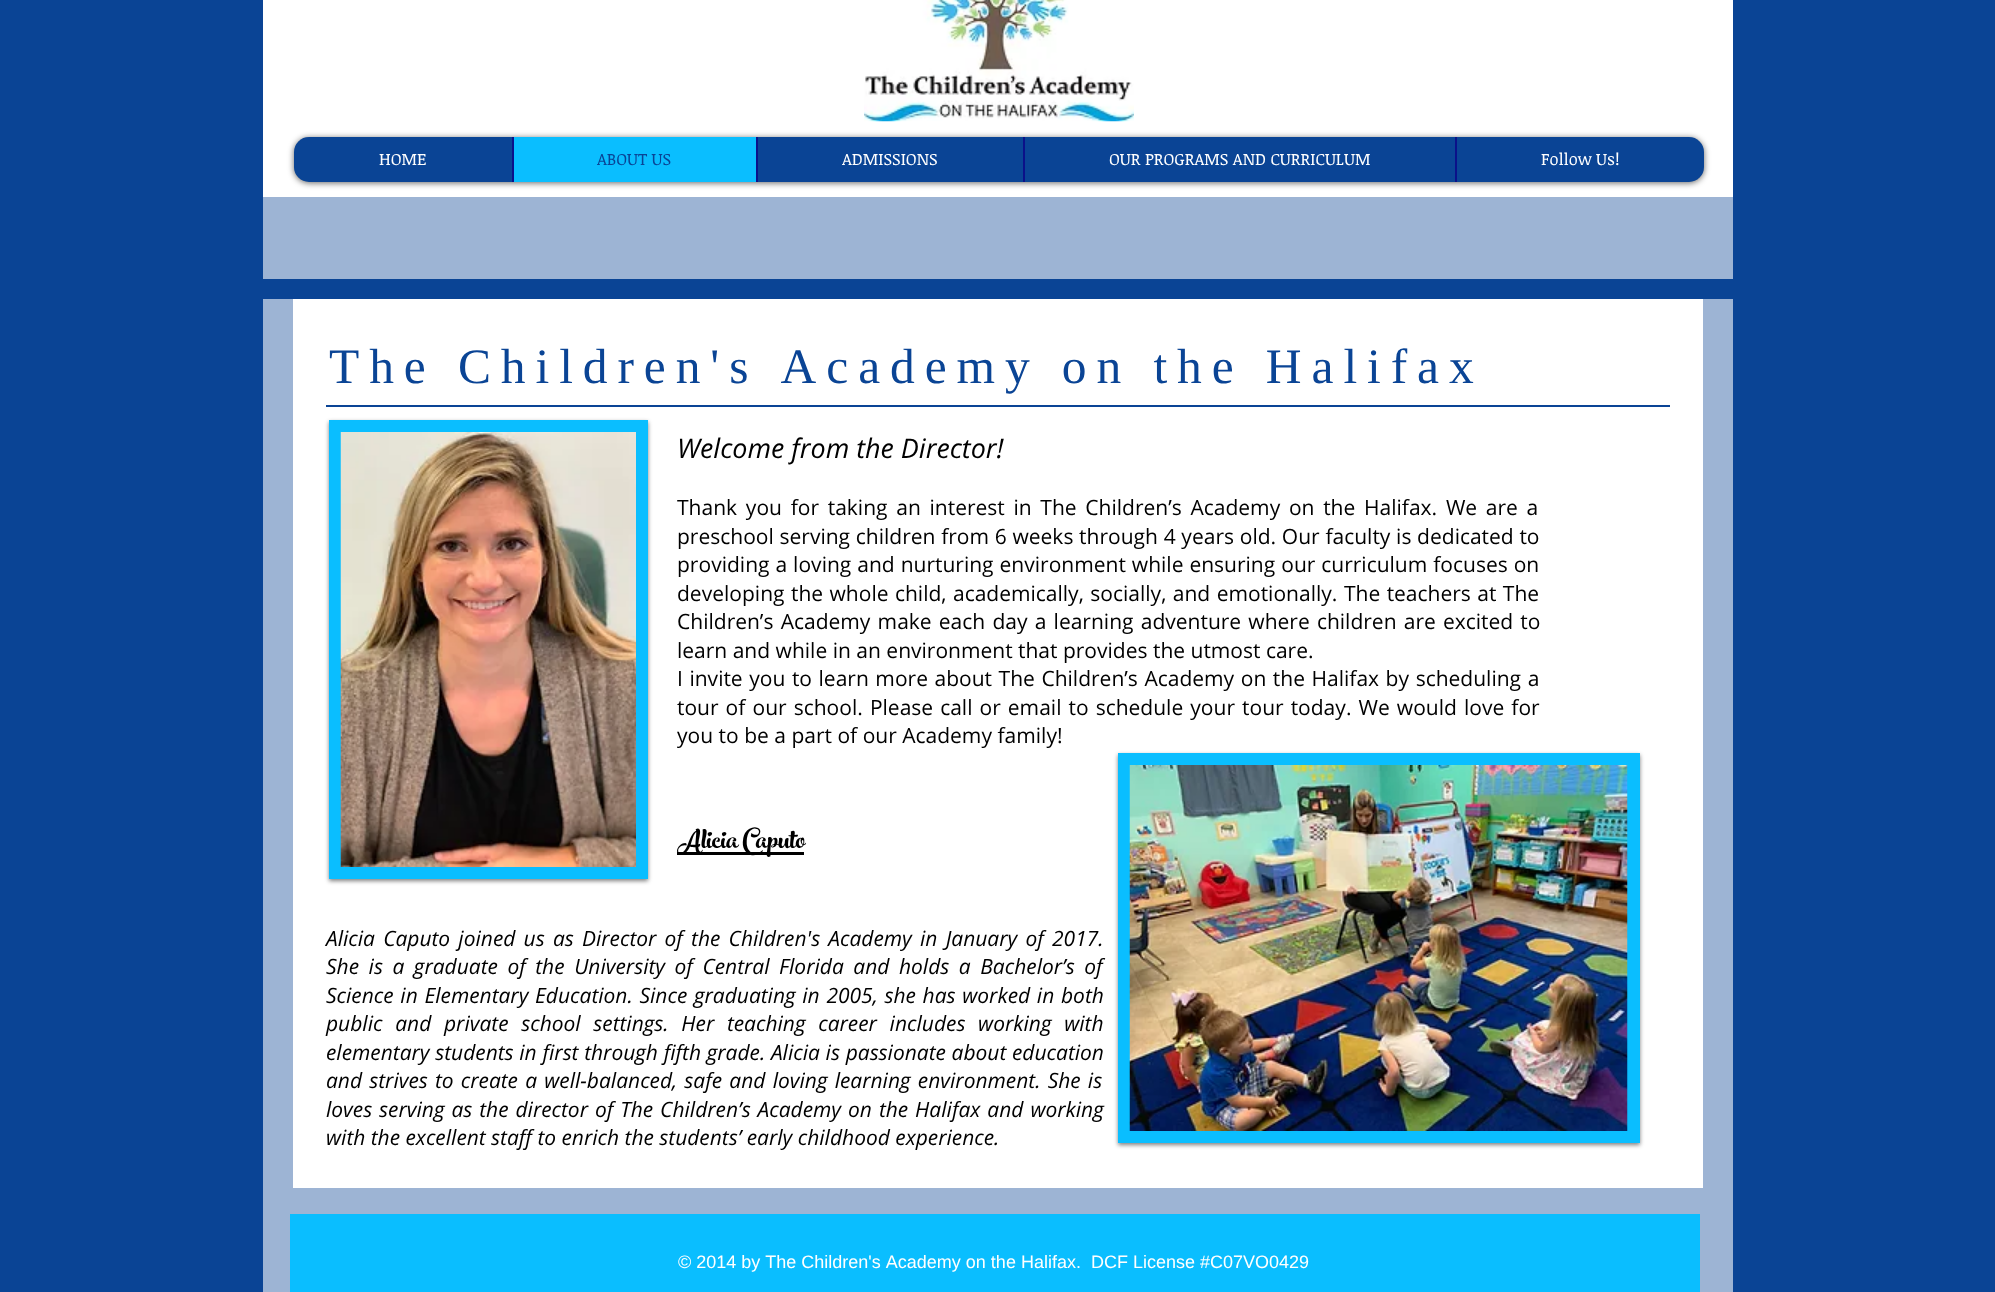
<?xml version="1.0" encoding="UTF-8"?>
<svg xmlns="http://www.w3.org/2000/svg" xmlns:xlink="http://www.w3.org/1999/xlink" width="1995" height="1292">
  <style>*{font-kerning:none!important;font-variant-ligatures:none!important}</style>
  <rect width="100%" height="100%" fill="#0a4495" />
  <rect x="263" width="1470" height="197" fill="#ffffff" />
  <image x="864" y="0" width="270" height="122" xlink:href="image1.png" />
  <rect x="294" y="138" width="1410" height="45" rx="15" fill="#000000" fill-opacity="0.6" filter="blur(3px)" />
  <rect x="294" y="137" width="1410" height="45" rx="15" fill="#0a4495" />
  <rect x="514" y="137" width="242" height="45" fill="#0abeff" />
  <rect x="512" y="137" width="2" height="45" fill="#0b1189" />
  <rect x="756" y="137" width="2" height="45" fill="#0b1189" />
  <rect x="1023" y="137" width="2" height="45" fill="#0b1189" />
  <rect x="1455" y="137" width="2" height="45" fill="#0b1189" />
  <rect x="263" y="197" width="1470" height="82" fill="#9db4d4" />
  <rect x="263" y="299" width="1470" height="993" fill="#9db4d4" />
  <rect x="293" y="299" width="1410" height="889" fill="#ffffff" />
  <rect x="326" y="405" width="1344" height="2" fill="#0a4495" />
  <rect x="329" y="422" width="319" height="459" fill="#000000" fill-opacity="0.5" filter="blur(2px)" />
  <rect x="329" y="420" width="319" height="459" fill="#0abeff" />
  <image x="340" y="432" width="296" height="435" xlink:href="image2.png" />
  <rect x="677" y="852" width="127" height="3" fill="#000000" />
  <rect x="1118" y="755" width="522" height="390" fill="#000000" fill-opacity="0.5" filter="blur(2px)" />
  <rect x="1118" y="753" width="522" height="390" fill="#0abeff" />
  <image x="1129" y="765" width="499" height="366" xlink:href="image3.png" />
  <rect x="290" y="1214" width="1410" height="78" fill="#0abeff" />
  <text x="379" y="165" style="font-family: Noticia Text; font-size: 16.5px; fill: #ffffff">HOME</text>
  <text x="597" y="165" style="font-family: Noticia Text; font-size: 16.5px; fill: #0a4495">ABOUT US</text>
  <text x="842" y="165" style="font-family: Noticia Text; font-size: 16.5px; fill: #ffffff">ADMISSIONS</text>
  <text x="1109" y="165" style="font-family: Noticia Text; font-size: 16.5px; fill: #ffffff">OUR PROGRAMS AND CURRICULUM</text>
  <text x="1541" y="165" style="font-family: Noticia Text; font-size: 16.5px; fill: #ffffff">Follow Us!</text>
  <text x="329" y="383" style="font-family: Liberation Serif; font-size: 49.5px; letter-spacing: 9.9px; fill: #0a4495">The Children's Academy on the Halifax</text>
  <text x="677" y="458" style="font-family: Open Sans; font-size: 27px; font-style: italic; fill: #000000">Welcome from the Director!</text>
  <text x="677" y="515" word-spacing="3.25" style="font-family: Open Sans; font-size: 21px; fill: #000000">Thank you for taking an interest in The Children’s Academy on the Halifax. We are a</text>
  <text x="677" y="544" word-spacing="0.25" style="font-family: Open Sans; font-size: 21px; fill: #000000">preschool serving children from 6 weeks through 4 years old. Our faculty is dedicated to</text>
  <text x="677" y="572" word-spacing="0.5" style="font-family: Open Sans; font-size: 21px; fill: #000000">providing a loving and nurturing environment while ensuring our curriculum focuses on</text>
  <text x="677" y="601" word-spacing="1" style="font-family: Open Sans; font-size: 21px; fill: #000000">developing the whole child, academically, socially, and emotionally. The teachers at The</text>
  <text x="677" y="629" word-spacing="1.75" style="font-family: Open Sans; font-size: 21px; fill: #000000">Children’s Academy make each day a learning adventure where children are excited to</text>
  <text x="677" y="658" style="font-family: Open Sans; font-size: 21px; fill: #000000">learn and while in an environment that provides the utmost care.</text>
  <text x="677" y="686" word-spacing="1.1" style="font-family: Open Sans; font-size: 21px; fill: #000000">I invite you to learn more about The Children’s Academy on the Halifax by scheduling a</text>
  <text x="677" y="715" word-spacing="1.6" style="font-family: Open Sans; font-size: 21px; fill: #000000">tour of our school. Please call or email to schedule your tour today. We would love for</text>
  <text x="677" y="743" style="font-family: Open Sans; font-size: 21px; fill: #000000">you to be a part of our Academy family!</text>
  <text x="677" y="848" style="font-family: 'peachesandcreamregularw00'; font-size: 40.5px; fill: #000000">Alicia Caputo</text>
  <text x="326" y="946" word-spacing="2.75" style="font-family: Open Sans; font-size: 21px; font-style: italic; fill: #000000">Alicia Caputo joined us as Director of the Children's Academy in January of 2017.</text>
  <text x="326" y="974" word-spacing="4.1" style="font-family: Open Sans; font-size: 21px; font-style: italic; fill: #000000">She is a graduate of the University of Central Florida and holds a Bachelor’s of</text>
  <text x="326" y="1003" word-spacing="1.25" style="font-family: Open Sans; font-size: 21px; font-style: italic; fill: #000000">Science in Elementary Education. Since graduating in 2005, she has worked in both</text>
  <text x="326" y="1031" word-spacing="7.25" style="font-family: Open Sans; font-size: 21px; font-style: italic; fill: #000000">public and private school settings. Her teaching career includes working with</text>
  <text x="326" y="1060" word-spacing="0.25" style="font-family: Open Sans; font-size: 21px; font-style: italic; fill: #000000">elementary students in first through fifth grade. Alicia is passionate about education</text>
  <text x="326" y="1088" word-spacing="1.75" style="font-family: Open Sans; font-size: 21px; font-style: italic; fill: #000000">and strives to create a well-balanced, safe and loving learning environment. She is</text>
  <text x="326" y="1117" word-spacing="1.5" style="font-family: Open Sans; font-size: 21px; font-style: italic; fill: #000000">loves serving as the director of The Children’s Academy on the Halifax and working</text>
  <text x="326" y="1145" style="font-family: Open Sans; font-size: 21px; font-style: italic; fill: #000000">with the excellent staff to enrich the students’ early childhood experience.</text>
  <text x="678" y="1268" style="font-family: Liberation Sans; font-size: 18px; fill: #ffffff" xml:space="preserve">© 2014 by The Children's Academy on the Halifax.  DCF License #C07VO0429</text>
</svg>
